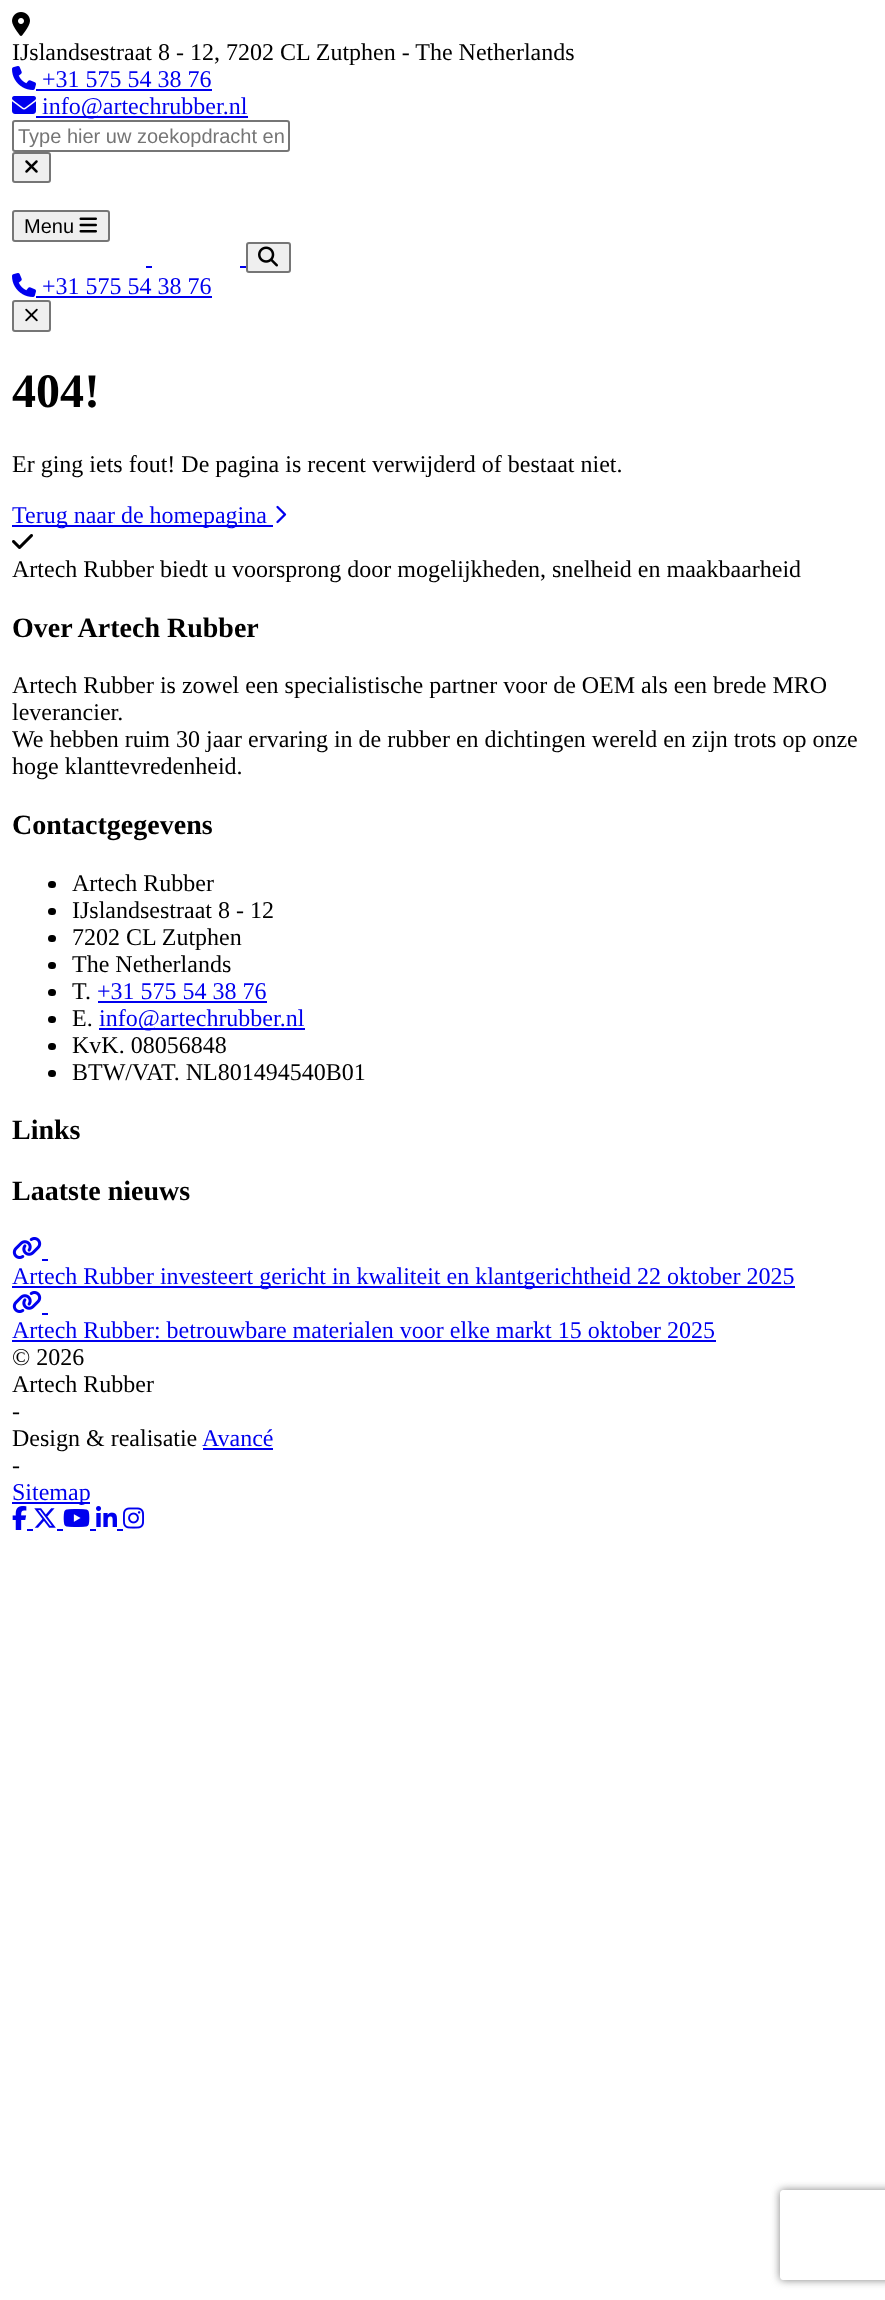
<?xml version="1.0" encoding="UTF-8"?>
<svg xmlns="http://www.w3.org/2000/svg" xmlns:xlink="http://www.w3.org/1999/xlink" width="885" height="2300">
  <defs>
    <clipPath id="clip1"><path d="M 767 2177 h 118 v 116 h -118 z m 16 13 h 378 c 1.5 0 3 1.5 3 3 v 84 c 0 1.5 -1.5 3 -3 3 h -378 c -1.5 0 -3 -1.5 -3 -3 v -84 c 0 -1.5 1.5 -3 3 -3 z" clip-rule="evenodd" /></clipPath>
    <clipPath id="clip2"><rect x="18" y="125" width="266" height="22" /></clipPath>
  </defs>
  <rect width="100%" height="100%" fill="#ffffff" />
  <image x="12" y="12" width="18" height="24" xlink:href="image1.png" />
  <image x="12" y="66" width="24" height="24" xlink:href="image2.png" />
  <rect x="36" y="89" width="176" height="2" fill="#0000ee" />
  <image x="12" y="96" width="24" height="18" xlink:href="image3.png" />
  <rect x="36" y="116" width="212" height="2" fill="#0000ee" />
  <rect x="13" y="121" width="276" height="30" rx="2" fill="none" stroke="#767676" stroke-width="2" />
  <rect x="13" y="153" width="37" height="29" rx="2" fill="#efefef" stroke="#767676" stroke-width="2" />
  <image x="25" y="160" width="13" height="13" xlink:href="image4.png" />
  <rect x="13" y="211" width="96" height="30" rx="2" fill="#efefef" stroke="#767676" stroke-width="2" />
  <image x="79" y="217" width="18" height="16" xlink:href="image5.png" />
  <rect x="146" y="266" width="6" height="2" fill="#0000ee" />
  <rect x="240" y="266" width="6" height="2" fill="#0000ee" />
  <rect x="247" y="243" width="43" height="29" rx="2" fill="#efefef" stroke="#767676" stroke-width="2" />
  <image x="258" y="246" width="20" height="21" xlink:href="image6.png" />
  <image x="12" y="273" width="24" height="24" xlink:href="image2.png" />
  <rect x="36" y="296" width="176" height="2" fill="#0000ee" />
  <rect x="13" y="301" width="37" height="30" rx="2" fill="#efefef" stroke="#767676" stroke-width="2" />
  <image x="25" y="308" width="13" height="14" xlink:href="image7.png" />
  <rect x="12" y="525" width="261" height="2" fill="#0000ee" />
  <image x="276" y="505" width="11" height="19" xlink:href="image8.png" />
  <image x="12" y="534" width="21" height="15" xlink:href="image9.png" />
  <rect x="48" y="881" width="8" height="7" rx="3.5" fill="#000000" />
  <rect x="48" y="908" width="8" height="7" rx="3.5" fill="#000000" />
  <rect x="48" y="935" width="8" height="7" rx="3.5" fill="#000000" />
  <rect x="48" y="962" width="8" height="7" rx="3.5" fill="#000000" />
  <rect x="48" y="989" width="8" height="7" rx="3.5" fill="#000000" />
  <rect x="98" y="1001" width="169" height="2" fill="#0000ee" />
  <rect x="48" y="1016" width="8" height="7" rx="3.5" fill="#000000" />
  <rect x="99" y="1028" width="206" height="2" fill="#0000ee" />
  <rect x="48" y="1043" width="8" height="7" rx="3.5" fill="#000000" />
  <rect x="48" y="1070" width="8" height="7" rx="3.5" fill="#000000" />
  <image x="12" y="1237" width="30" height="22" xlink:href="image10.png" />
  <rect x="42" y="1259" width="6" height="2" fill="#0000ee" />
  <rect x="12" y="1286" width="783" height="2" fill="#0000ee" />
  <image x="12" y="1291" width="30" height="22" xlink:href="image10.png" />
  <rect x="42" y="1313" width="6" height="2" fill="#0000ee" />
  <rect x="12" y="1340" width="704" height="2" fill="#0000ee" />
  <rect x="203" y="1448" width="70" height="2" fill="#0000ee" />
  <rect x="12" y="1502" width="78" height="2" fill="#0000ee" />
  <image x="12" y="1506" width="15" height="24" xlink:href="image11.png" />
  <rect x="27" y="1529" width="6" height="2" fill="#0000ee" />
  <image x="34" y="1508" width="22" height="20" xlink:href="image12.png" />
  <rect x="57" y="1529" width="6" height="2" fill="#0000ee" />
  <image x="63" y="1509" width="27" height="18" xlink:href="image13.png" />
  <rect x="90" y="1529" width="6" height="2" fill="#0000ee" />
  <image x="96" y="1506" width="21" height="21" xlink:href="image14.png" />
  <rect x="117" y="1529" width="6" height="2" fill="#0000ee" />
  <image x="123" y="1507" width="21" height="22" xlink:href="image15.png" />
  <g clip-path="url(#clip1)">
    <rect x="780" y="2190" width="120" height="90" rx="3" fill="#808080" filter="blur(4px)" />
  </g>
  <text x="12" y="60" style="font-family: Liberation Serif; font-size: 24px; fill: #000000">IJslandsestraat 8 - 12, 7202 CL Zutphen - The Netherlands</text>
  <text x="42" y="87" style="font-family: Liberation Serif; font-size: 24px; fill: #0000ee">+31 575 54 38 76</text>
  <text x="42" y="114" style="font-family: Liberation Serif; font-size: 24px; fill: #0000ee">info@artechrubber.nl</text>
  <g clip-path="url(#clip2)">
    <text x="18" y="143" style="font-family: Liberation Sans; font-size: 20px; fill: #757575">Type hier uw zoekopdracht en</text>
  </g>
  <text x="24" y="233" style="font-family: Liberation Sans; font-size: 20px; fill: #000000">Menu</text>
  <text x="42" y="294" style="font-family: Liberation Serif; font-size: 24px; fill: #0000ee">+31 575 54 38 76</text>
  <text x="12" y="407" style="font-family: Liberation Serif; font-size: 48px; font-weight: bold; fill: #000000">404!</text>
  <text x="12" y="472" style="font-family: Liberation Serif; font-size: 24px; fill: #000000">Er ging iets fout! De pagina is recent verwijderd of bestaat niet.</text>
  <text x="12" y="523" style="font-family: Liberation Serif; font-size: 24px; fill: #0000ee">Terug naar de homepagina</text>
  <text x="12" y="577" style="font-family: Liberation Serif; font-size: 24px; fill: #000000">Artech Rubber biedt u voorsprong door mogelijkheden, snelheid en maakbaarheid</text>
  <text x="12" y="637" style="font-family: Liberation Serif; font-size: 28px; font-weight: bold; fill: #000000">Over Artech Rubber</text>
  <text x="12" y="693" style="font-family: Liberation Serif; font-size: 24px; fill: #000000">Artech Rubber is zowel een specialistische partner voor de OEM als een brede MRO</text>
  <text x="12" y="720" style="font-family: Liberation Serif; font-size: 24px; fill: #000000">leverancier.</text>
  <text x="12" y="747" style="font-family: Liberation Serif; font-size: 24px; fill: #000000">We hebben ruim 30 jaar ervaring in de rubber en dichtingen wereld en zijn trots op onze</text>
  <text x="12" y="774" style="font-family: Liberation Serif; font-size: 24px; fill: #000000">hoge klanttevredenheid.</text>
  <text x="12" y="834" style="font-family: Liberation Serif; font-size: 28px; font-weight: bold; fill: #000000">Contactgegevens</text>
  <text x="72" y="891" style="font-family: Liberation Serif; font-size: 24px; fill: #000000">Artech Rubber</text>
  <text x="72" y="918" style="font-family: Liberation Serif; font-size: 24px; fill: #000000">IJslandsestraat 8 - 12</text>
  <text x="72" y="945" style="font-family: Liberation Serif; font-size: 24px; fill: #000000">7202 CL Zutphen</text>
  <text x="72" y="972" style="font-family: Liberation Serif; font-size: 24px; fill: #000000">The Netherlands</text>
  <text x="72" y="999" style="font-family: Liberation Serif; font-size: 24px; fill: #000000">T.</text>
  <text x="97" y="999" style="font-family: Liberation Serif; font-size: 24px; fill: #0000ee">+31 575 54 38 76</text>
  <text x="72" y="1026" style="font-family: Liberation Serif; font-size: 24px; fill: #000000">E.</text>
  <text x="99" y="1026" style="font-family: Liberation Serif; font-size: 24px; fill: #0000ee">info@artechrubber.nl</text>
  <text x="72" y="1053" style="font-family: Liberation Serif; font-size: 24px; fill: #000000">KvK. 08056848</text>
  <text x="72" y="1080" style="font-family: Liberation Serif; font-size: 24px; fill: #000000">BTW/VAT. NL801494540B01</text>
  <text x="12" y="1139" style="font-family: Liberation Serif; font-size: 28px; font-weight: bold; fill: #000000">Links</text>
  <text x="12" y="1200" style="font-family: Liberation Serif; font-size: 28px; font-weight: bold; fill: #000000">Laatste nieuws</text>
  <text x="12" y="1284" style="font-family: Liberation Serif; font-size: 24px; fill: #0000ee">Artech Rubber investeert gericht in kwaliteit en klantgerichtheid 22 oktober 2025</text>
  <text x="12" y="1338" style="font-family: Liberation Serif; font-size: 24px; fill: #0000ee">Artech Rubber: betrouwbare materialen voor elke markt 15 oktober 2025</text>
  <text x="12" y="1365" style="font-family: Liberation Serif; font-size: 24px; fill: #000000">© 2026</text>
  <text x="12" y="1392" style="font-family: Liberation Serif; font-size: 24px; fill: #000000">Artech Rubber</text>
  <text x="12" y="1419" style="font-family: Liberation Serif; font-size: 24px; fill: #000000">-</text>
  <text x="12" y="1446" style="font-family: Liberation Serif; font-size: 24px; fill: #000000">Design &amp; realisatie</text>
  <text x="202" y="1446" style="font-family: Liberation Serif; font-size: 24px; fill: #0000ee">Avancé</text>
  <text x="12" y="1473" style="font-family: Liberation Serif; font-size: 24px; fill: #000000">-</text>
  <text x="12" y="1500" style="font-family: Liberation Serif; font-size: 24px; fill: #0000ee">Sitemap</text>
</svg>
